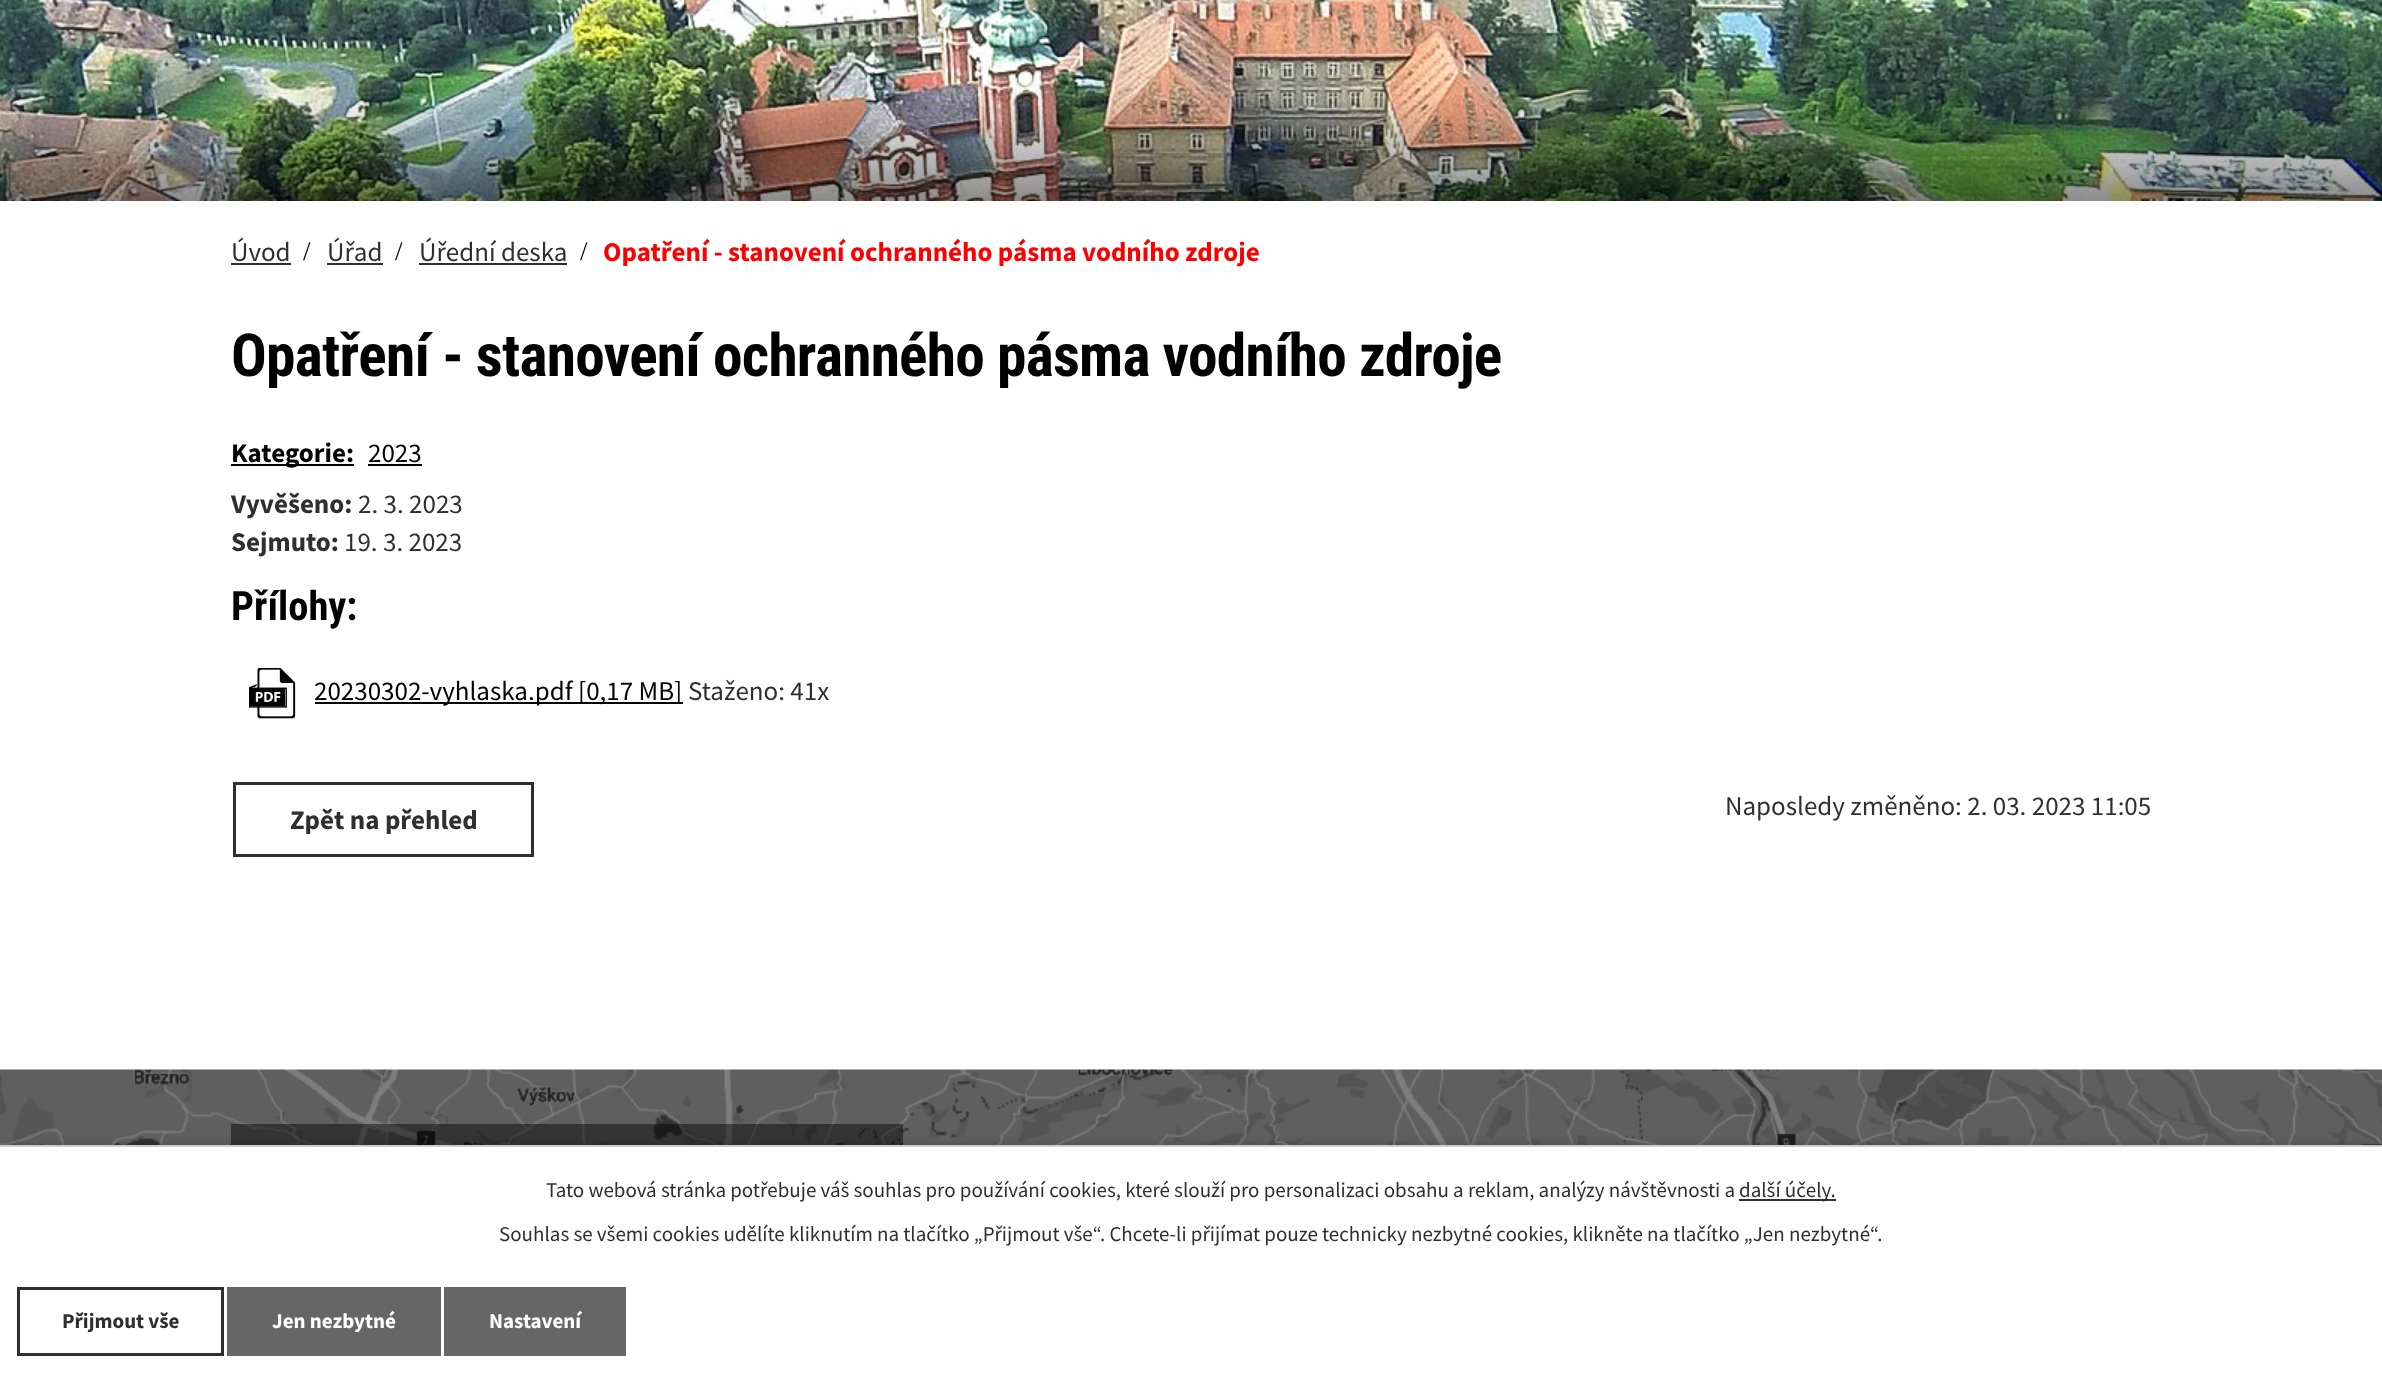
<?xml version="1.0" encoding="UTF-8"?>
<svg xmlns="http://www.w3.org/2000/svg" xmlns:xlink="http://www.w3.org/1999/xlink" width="2382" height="1391">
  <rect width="100%" height="100%" fill="#ffffff" />
  <image x="0" y="0" width="2382" height="201" xlink:href="image1.png" />
  <rect x="231" y="263" width="60" height="2" fill="#2f2f2f" />
  <rect x="327" y="263" width="56" height="2" fill="#2f2f2f" />
  <rect x="419" y="263" width="148" height="2" fill="#2f2f2f" />
  <rect x="231" y="464" width="123" height="2" fill="#000000" />
  <rect x="368" y="464" width="54" height="2" fill="#000000" />
  <image x="249" y="668" width="47" height="51" xlink:href="image2.png" />
  <rect x="315" y="702" width="368" height="2" fill="#000000" />
  <rect x="234.5" y="783.5" width="298" height="72" fill="none" stroke="#2f2f2f" stroke-width="3" />
  <image x="0" y="1069" width="2382" height="76" xlink:href="image3.png" />
  <rect x="231" y="1124" width="672" height="21" fill="#000000" fill-opacity="0.45" />
  <rect y="1145" width="2382" height="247" fill="#000000" fill-opacity="0.2" filter="blur(4px)" />
  <rect y="1147" width="2382" height="244" fill="#ffffff" />
  <rect y="1145" width="2382" height="2" fill="#cccccc" />
  <rect x="1739" y="1199" width="97" height="2" fill="#333333" />
  <rect x="18.5" y="1288.5" width="204" height="66" fill="none" stroke="#2f2f2f" stroke-width="3" />
  <rect x="227" y="1287" width="214" height="69" fill="#666666" />
  <rect x="444" y="1287" width="182" height="69" fill="#666666" />
  <text x="231" y="261" style="font-family: Source Sans Pro; font-size: 27px; fill: #2f2f2f">Úvod</text>
  <text x="303" y="260" style="font-family: Liberation Serif; font-size: 27px; fill: #000000">/</text>
  <text x="327" y="261" style="font-family: Source Sans Pro; font-size: 27px; fill: #2f2f2f">Úřad</text>
  <text x="395" y="260" style="font-family: Liberation Serif; font-size: 27px; fill: #000000">/</text>
  <text x="419" y="261" style="font-family: Source Sans Pro; font-size: 27px; fill: #2f2f2f">Úřední deska</text>
  <text x="580" y="260" style="font-family: Liberation Serif; font-size: 27px; fill: #000000">/</text>
  <text x="603" y="261" style="font-family: Source Sans Pro; font-size: 27px; font-weight: bold; fill: #fd0001">Opatření - stanovení ochranného pásma vodního zdroje</text>
  <text x="231" y="376" style="font-family: Roboto Condensed; font-size: 59.4px; font-weight: bold; letter-spacing: -0.75px; fill: #000000">Opatření - stanovení ochranného pásma vodního zdroje</text>
  <text x="231" y="462" style="font-family: Source Sans Pro; font-size: 27px; font-weight: bold; fill: #000000">Kategorie:</text>
  <text x="368" y="462" style="font-family: Source Sans Pro; font-size: 27px; fill: #000000">2023</text>
  <text x="231" y="513" style="font-family: Source Sans Pro; font-size: 27px; font-weight: bold; fill: #2f2f2f">Vyvěšeno:</text>
  <text x="358" y="513" style="font-family: Source Sans Pro; font-size: 27px; fill: #2f2f2f">2. 3. 2023</text>
  <text x="231" y="551" style="font-family: Source Sans Pro; font-size: 27px; font-weight: bold; fill: #2f2f2f">Sejmuto:</text>
  <text x="344" y="551" style="font-family: Source Sans Pro; font-size: 27px; fill: #2f2f2f">19. 3. 2023</text>
  <text x="231" y="620" style="font-family: Roboto Condensed; font-size: 40.5px; font-weight: bold; fill: #000000">Přílohy:</text>
  <text x="314" y="700" style="font-family: Source Sans Pro; font-size: 27px; fill: #000000">20230302-vyhlaska.pdf [0,17 MB]</text>
  <text x="688" y="700" style="font-family: Source Sans Pro; font-size: 27px; fill: #2f2f2f">Staženo: 41x</text>
  <text x="290" y="829" style="font-family: Source Sans Pro; font-size: 27px; font-weight: bold; fill: #2f2f2f">Zpět na přehled</text>
  <text x="1725" y="815" style="font-family: Source Sans Pro; font-size: 27px; fill: #2f2f2f">Naposledy změněno: 2. 03. 2023 11:05</text>
  <text x="546" y="1197" style="font-family: Source Sans Pro; font-size: 21px; fill: #2f2f2f">Tato webová stránka potřebuje váš souhlas pro používání cookies, které slouží pro personalizaci obsahu a reklam, analýzy návštěvnosti a</text>
  <text x="1739" y="1197" style="font-family: Source Sans Pro; font-size: 21px; fill: #2f2f2f">další účely.</text>
  <text x="499" y="1241" style="font-family: Source Sans Pro; font-size: 21px; fill: #2f2f2f">Souhlas se všemi cookies udělíte kliknutím na tlačítko „Přijmout vše“. Chcete-li přijímat pouze technicky nezbytné cookies, klikněte na tlačítko „Jen nezbytné“.</text>
  <text x="62" y="1328" style="font-family: Source Sans Pro; font-size: 21px; font-weight: bold; fill: #2f2f2f">Přijmout vše</text>
  <text x="272" y="1328" style="font-family: Source Sans Pro; font-size: 21px; font-weight: bold; fill: #ffffff">Jen nezbytné</text>
  <text x="489" y="1328" style="font-family: Source Sans Pro; font-size: 21px; font-weight: bold; fill: #ffffff">Nastavení</text>
</svg>
